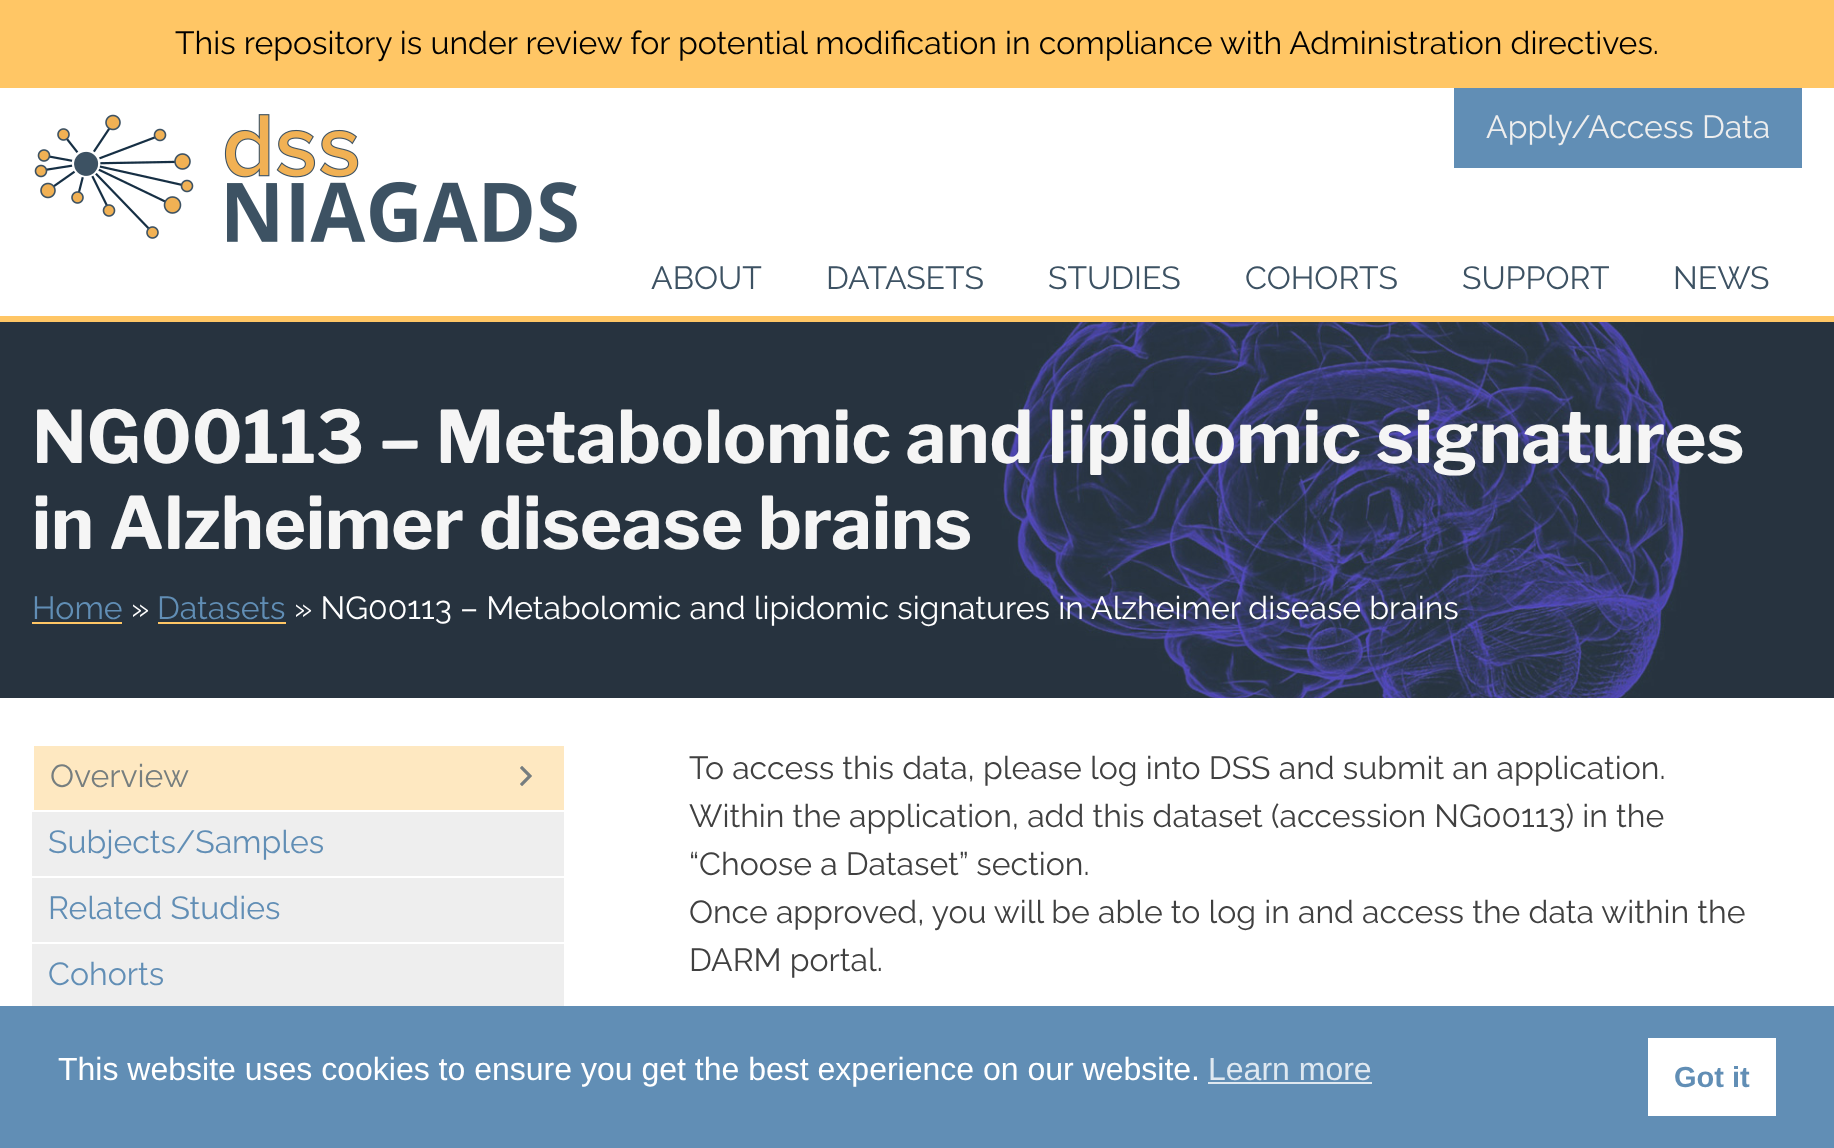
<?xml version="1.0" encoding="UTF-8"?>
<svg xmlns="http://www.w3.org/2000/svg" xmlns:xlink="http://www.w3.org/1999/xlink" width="1834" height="1148">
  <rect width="100%" height="100%" fill="#ffffff" />
  <rect width="1834" height="88" fill="#ffc665" />
  <rect y="316" width="1834" height="6" fill="#ffc665" />
  <image x="34" y="114" width="543" height="129" xlink:href="image1.png" />
  <rect x="1454" y="88" width="348" height="80" fill="#618eb5" />
  <image x="0" y="322" width="1834" height="376" xlink:href="image2.png" />
  <rect x="32" y="622" width="90" height="2" fill="#ffc665" />
  <rect x="158" y="622" width="128" height="2" fill="#ffc665" />
  <rect x="34" y="746" width="530" height="64" fill="#fee8c1" />
  <image x="520" y="766" width="12" height="20" xlink:href="image3.png" />
  <rect x="32" y="812" width="532" height="64" fill="#eeeeee" />
  <rect x="32" y="878" width="532" height="64" fill="#eeeeee" />
  <rect x="32" y="944" width="532" height="62" fill="#eeeeee" />
  <rect y="1006" width="1834" height="142" fill="#618eb5" />
  <rect x="1208" y="1082" width="164" height="2" fill="#dfe8f0" />
  <rect x="1648" y="1038" width="128" height="78" fill="#ffffff" />
  <text x="175" y="54" style="font-family: Raleway; font-size: 32px; font-weight: 100; fill: #000000">This repository is under review for potential modification in compliance with Administration directives.</text>
  <text x="1486" y="138" style="font-family: Raleway; font-size: 32px; font-weight: 100; fill: #eeeeee">Apply/Access Data</text>
  <text x="651" y="289" style="font-family: Raleway; font-size: 32px; font-weight: 100; fill: #3d5263">ABOUT</text>
  <text x="826" y="289" style="font-family: Raleway; font-size: 32px; font-weight: 100; fill: #3d5263">DATASETS</text>
  <text x="1048" y="289" style="font-family: Raleway; font-size: 32px; font-weight: 100; fill: #3d5263">STUDIES</text>
  <text x="1245" y="289" style="font-family: Raleway; font-size: 32px; font-weight: 100; fill: #3d5263">COHORTS</text>
  <text x="1462" y="289" style="font-family: Raleway; font-size: 32px; font-weight: 100; fill: #3d5263">SUPPORT</text>
  <text x="1673" y="289" style="font-family: Raleway; font-size: 32px; font-weight: 100; fill: #3d5263">NEWS</text>
  <text x="32" y="463" style="font-family: Libre Franklin; font-size: 72px; font-weight: 100; fill: #f5f5f5">NG00113 – Metabolomic and lipidomic signatures</text>
  <text x="32" y="549" style="font-family: Libre Franklin; font-size: 72px; font-weight: 100; fill: #f5f5f5">in Alzheimer disease brains</text>
  <text x="32" y="619" style="font-family: Raleway; font-size: 32px; font-weight: 100; fill: #618eb5">Home</text>
  <text x="131" y="619" style="font-family: Raleway; font-size: 32px; font-weight: 100; fill: #ffffff">»</text>
  <text x="157" y="619" style="font-family: Raleway; font-size: 32px; font-weight: 100; fill: #618eb5">Datasets</text>
  <text x="294" y="619" style="font-family: Raleway; font-size: 32px; font-weight: 100; fill: #ffffff">» NG00113 – Metabolomic and lipidomic signatures in Alzheimer disease brains</text>
  <text x="50" y="787" style="font-family: Raleway; font-size: 32px; font-weight: 100; fill: #767e7f">Overview</text>
  <text x="48" y="853" style="font-family: Raleway; font-size: 32px; font-weight: 100; fill: #618eb5">Subjects/Samples</text>
  <text x="48" y="919" style="font-family: Raleway; font-size: 32px; font-weight: 100; fill: #618eb5">Related Studies</text>
  <text x="48" y="985" style="font-family: Raleway; font-size: 32px; font-weight: 100; fill: #618eb5">Cohorts</text>
  <text x="689" y="779" style="font-family: Raleway; font-size: 32px; font-weight: 100; fill: #404040">To access this data, please log into DSS and submit an application.</text>
  <text x="689" y="827" style="font-family: Raleway; font-size: 32px; font-weight: 100; fill: #404040">Within the application, add this dataset (accession NG00113) in the</text>
  <text x="689" y="875" style="font-family: Raleway; font-size: 32px; font-weight: 100; fill: #404040">“Choose a Dataset” section.</text>
  <text x="689" y="923" style="font-family: Raleway; font-size: 32px; font-weight: 100; fill: #404040">Once approved, you will be able to log in and access the data within the</text>
  <text x="689" y="971" style="font-family: Raleway; font-size: 32px; font-weight: 100; fill: #404040">DARM portal.</text>
  <text x="58" y="1080" style="font-family: Liberation Sans; font-size: 32px; fill: #ffffff">This website uses cookies to ensure you get the best experience on our website.</text>
  <text x="1208" y="1080" style="font-family: Liberation Sans; font-size: 32px; fill: #dfe8f0">Learn more</text>
  <text x="1674" y="1087" style="font-family: Liberation Sans; font-size: 29px; font-weight: bold; fill: #618eb5">Got it</text>
</svg>
